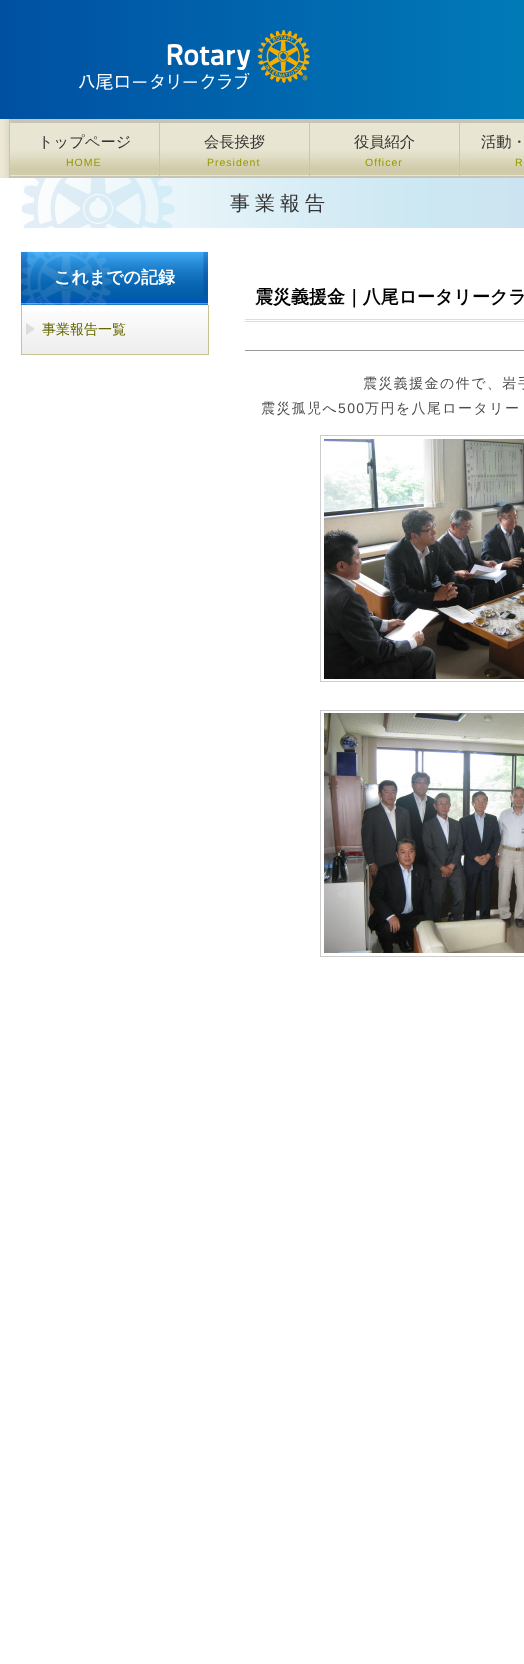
<?xml version="1.0" encoding="UTF-8"?>
<svg xmlns="http://www.w3.org/2000/svg" xmlns:xlink="http://www.w3.org/1999/xlink" width="524" height="1664">
  <defs>
    <linearGradient id="g1" gradientUnits="userSpaceOnUse" x1="0" y1="59" x2="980" y2="59"><stop offset="0" stop-color="#0050a2" /><stop offset="1" stop-color="#019fcb" /></linearGradient>
    <linearGradient id="g2" gradientUnits="userSpaceOnUse" x1="115" y1="305" x2="115" y2="354"><stop offset="0" stop-color="#ffffff" /><stop offset="0.47" stop-color="#f6f6f6" /><stop offset="1" stop-color="#ededed" /></linearGradient>
  </defs>
  <rect width="100%" height="100%" fill="#ffffff" />
  <rect width="524" height="119" fill="url(#g1)" />
  <image x="79" y="30" width="231" height="60" xlink:href="image1.png" />
  <image x="0" y="119" width="9" height="59" xlink:href="image2.png" />
  <image x="9" y="119" width="150" height="59" xlink:href="image3.png" />
  <image x="159" y="119" width="150" height="59" xlink:href="image3.png" />
  <image x="309" y="119" width="150" height="59" xlink:href="image3.png" />
  <image x="459" y="119" width="65" height="59" xlink:href="image4.png" />
  <image x="21" y="178" width="503" height="50" xlink:href="image5.png" />
  <image x="21" y="251" width="187" height="54" xlink:href="image6.png" />
  <rect x="22" y="311" width="186" height="43" fill="url(#g2)" />
  <rect x="208" y="305" width="1" height="50" fill="#c7c491" />
  <rect x="21" y="354" width="188" height="1" fill="#c7c491" />
  <rect x="21" y="305" width="1" height="50" fill="#c7c491" />
  <path d="M 26 335 v -12 l 9 6 z" fill="#dddddd" />
  <rect x="245" y="319" width="279" height="1" fill="#dddddd" />
  <rect x="245" y="321" width="279" height="1" fill="#dddddd" />
  <rect x="245" y="350" width="279" height="1" fill="#999999" />
  <rect x="320.5" y="435.5" width="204" height="246" fill="none" stroke="#cccccc" />
  <image x="324" y="439" width="200" height="240" xlink:href="image7.png" />
  <rect x="320.5" y="710.5" width="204" height="246" fill="none" stroke="#cccccc" />
  <image x="324" y="713" width="200" height="240" xlink:href="image8.png" />
  <text x="38" y="147" style="font-family: WenQuanYi Zen Hei; font-size: 15.25px; font-weight: 500; fill: #333333">トップページ</text>
  <text x="66" y="166" style="font-family: Liberation Sans; font-size: 10.5px; letter-spacing: 1px; fill: #999900">HOME</text>
  <text x="204" y="147" style="font-family: WenQuanYi Zen Hei; font-size: 15.25px; font-weight: 500; fill: #333333">会長挨拶</text>
  <text x="207" y="166" style="font-family: Liberation Sans; font-size: 10.5px; letter-spacing: 1px; fill: #999900">President</text>
  <text x="354" y="147" style="font-family: WenQuanYi Zen Hei; font-size: 15.25px; font-weight: 500; fill: #333333">役員紹介</text>
  <text x="365" y="166" style="font-family: Liberation Sans; font-size: 10.5px; letter-spacing: 1px; fill: #999900">Officer</text>
  <text x="481" y="147" style="font-family: WenQuanYi Zen Hei; font-size: 15.25px; font-weight: 500; fill: #333333">活動・</text>
  <text x="515" y="166" style="font-family: Liberation Sans; font-size: 10.5px; letter-spacing: 1px; fill: #999900">R</text>
  <text x="230" y="210" style="font-family: WenQuanYi Zen Hei; font-size: 20px; font-weight: 500; letter-spacing: 5px; fill: #333333">事業報告</text>
  <text x="54" y="283" style="font-family: WenQuanYi Zen Hei; font-size: 17px; font-weight: bold; fill: #ffffff">これまでの記録</text>
  <text x="42" y="334" style="font-family: WenQuanYi Zen Hei; font-size: 14px; font-weight: 500; fill: #666600">事業報告一覧</text>
  <text x="255" y="303" style="font-family: WenQuanYi Zen Hei; font-size: 18px; font-weight: bold; fill: #000000">震災義援金｜八尾ロータリークラ</text>
  <text x="363" y="388" style="font-family: WenQuanYi Zen Hei; font-size: 14px; font-weight: 500; letter-spacing: 1.4px; fill: #4d4d4d">震災義援金の件で、岩手</text>
  <text x="261" y="413" style="font-family: WenQuanYi Zen Hei; font-size: 14px; font-weight: 500; letter-spacing: 1.4px; fill: #4d4d4d">震災孤児へ</text>
  <text x="338" y="413" style="font-family: Liberation Sans; font-size: 14px; letter-spacing: 1.4px; fill: #4d4d4d">500</text>
  <text x="365" y="413" style="font-family: WenQuanYi Zen Hei; font-size: 14px; font-weight: 500; letter-spacing: 1.4px; fill: #4d4d4d">万円を八尾ロータリー</text>
</svg>
